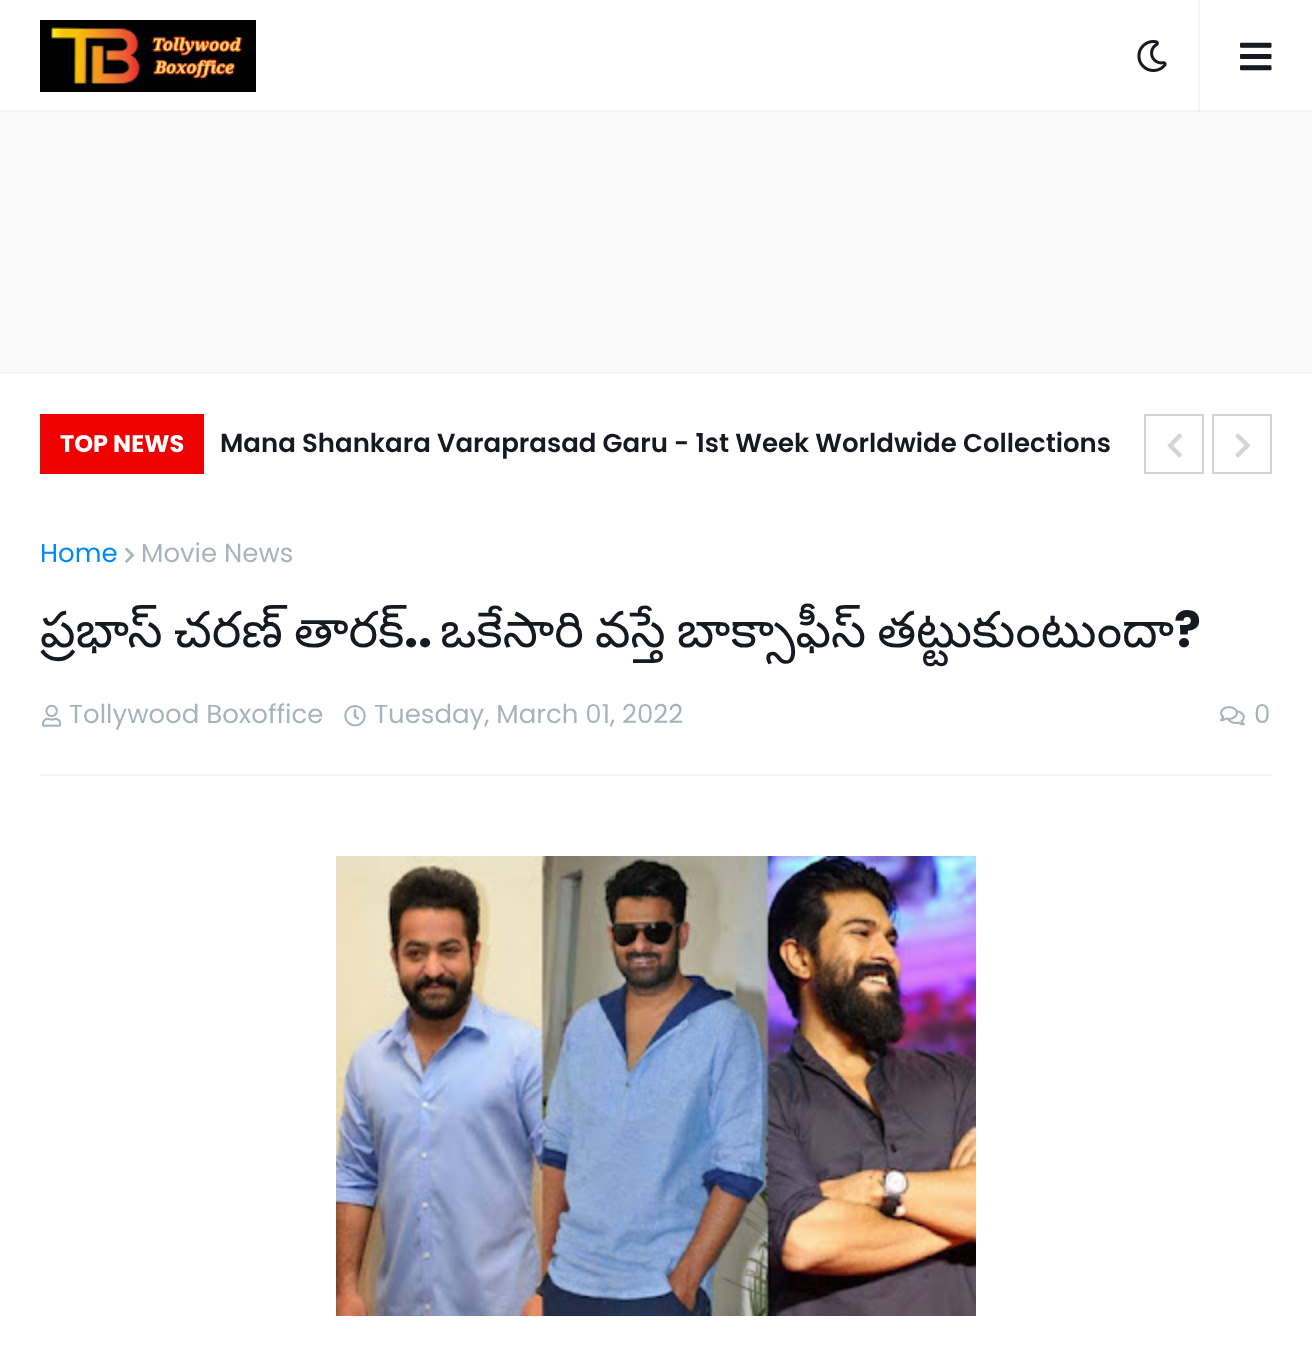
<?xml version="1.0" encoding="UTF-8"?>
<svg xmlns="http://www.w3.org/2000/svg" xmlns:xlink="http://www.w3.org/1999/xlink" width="1312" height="1363">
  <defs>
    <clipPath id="clip1"><rect x="40" y="534" width="1232" height="240" /></clipPath>
  </defs>
  <rect width="100%" height="100%" fill="#ffffff" />
  <rect x="1198" width="2" height="112" fill="#f5f5f5" />
  <rect y="110" width="1312" height="2" fill="#f5f5f5" />
  <rect x="1198" y="110" width="2" height="2" fill="#ececec" />
  <image x="40" y="20" width="216" height="72" xlink:href="image1.png" />
  <image x="1137" y="40" width="30" height="32" xlink:href="image2.png" />
  <image x="1240" y="42" width="32" height="29" xlink:href="image3.png" />
  <rect y="372" width="1312" height="2" fill="#f5f5f5" />
  <rect y="112" width="1312" height="260" fill="#fafafa" />
  <rect x="40" y="414" width="164" height="60" fill="#ed0101" />
  <rect x="1145" y="415" width="58" height="58" fill="none" stroke="#d4d4d4" stroke-width="2" />
  <image x="1167" y="433" width="15" height="25" xlink:href="image4.png" />
  <rect x="1213" y="415" width="58" height="58" fill="none" stroke="#d4d4d4" stroke-width="2" />
  <image x="1235" y="433" width="15" height="25" xlink:href="image5.png" />
  <rect x="40" y="774" width="1232" height="2" fill="#f5f5f5" />
  <image x="125" y="547" width="10" height="16" xlink:href="image6.png" />
  <image x="42" y="704" width="20" height="23" xlink:href="image7.png" />
  <image x="344" y="705" width="22" height="22" xlink:href="image8.png" />
  <image x="1220" y="706" width="25" height="20" xlink:href="image9.png" />
  <image x="336" y="856" width="640" height="460" xlink:href="image10.png" />
  <text x="60" y="452" style="font-family: Poppins; font-size: 24px; font-weight: bold; fill: #ffffff">TOP NEWS</text>
  <text x="220" y="452" style="font-family: Poppins; font-size: 26px; font-weight: 600; fill: #171921">Mana Shankara Varaprasad Garu - 1st Week Worldwide Collections</text>
  <text x="40" y="562" style="font-family: Poppins; font-size: 26px; fill: #0088ff">Home</text>
  <text x="141" y="562" style="font-family: Poppins; font-size: 26px; fill: #a9b4ba">Movie News</text>
  <g clip-path="url(#clip1)">
    <text x="40" y="647" word-spacing="-3" style="font-family: Noto Sans Telugu; font-size: 50px; fill: #171921">ప్రభాస్ చరణ్ తారక్</text>
  </g>
  <text x="404" y="647" style="font-family: Poppins; font-size: 50px; font-weight: bold; fill: #171921">..</text>
  <text x="440" y="647" word-spacing="-3" style="font-family: Noto Sans Telugu; font-size: 50px; fill: #171921">ఒకేసారి వస్తే బాక్సాఫీస్ తట్టుకుంటుందా</text>
  <text x="1174" y="647" style="font-family: Poppins; font-size: 50px; font-weight: bold; fill: #171921">?</text>
  <text x="69" y="723" style="font-family: Poppins; font-size: 26px; fill: #a9b4ba">Tollywood Boxoffice</text>
  <text x="374" y="723" style="font-family: Poppins; font-size: 26px; fill: #a9b4ba">Tuesday, March 01, 2022</text>
  <text x="1254" y="723" style="font-family: Poppins; font-size: 26px; fill: #a9b4ba">0</text>
</svg>
